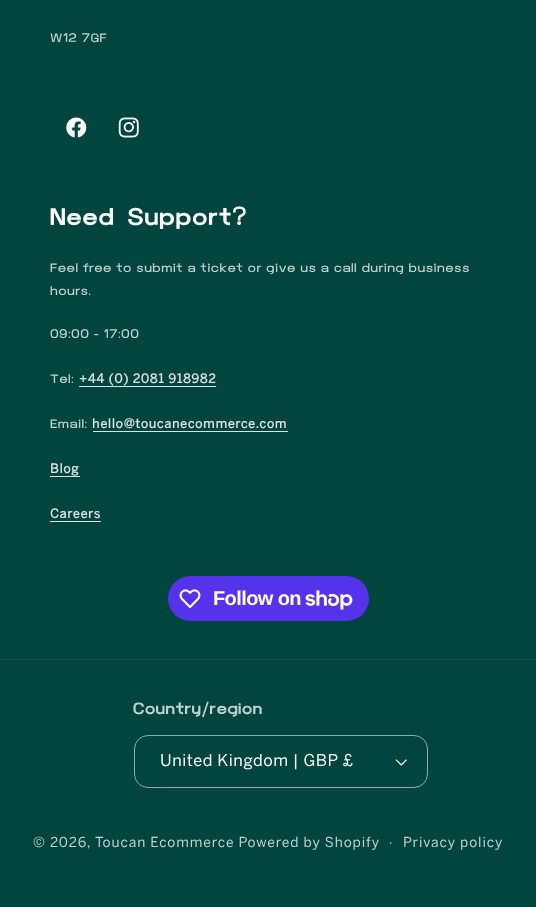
<?xml version="1.0" encoding="UTF-8"?>
<svg xmlns="http://www.w3.org/2000/svg" xmlns:xlink="http://www.w3.org/1999/xlink" width="536" height="907">
  <rect width="100%" height="100%" fill="#02453f" />
  <image x="66" y="117" width="21" height="21" xlink:href="image1.png" />
  <image x="118" y="117" width="21" height="21" xlink:href="image2.png" />
  <rect x="79" y="386" width="137" height="1" fill="#d9e3e2" />
  <rect x="93" y="431" width="195" height="1" fill="#d9e3e2" />
  <rect x="50" y="476" width="30" height="1" fill="#d9e3e2" />
  <rect x="50" y="521" width="51" height="1" fill="#d9e3e2" />
  <rect x="168" y="576" width="201" height="45" rx="22.5" fill="#5433eb" />
  <image x="179" y="589" width="22" height="20" xlink:href="image3.png" />
  <image x="305" y="590" width="48" height="20" xlink:href="image4.png" />
  <rect y="659" width="536" height="1" fill="#16544e" />
  <image x="395" y="759" width="12" height="7" xlink:href="image5.png" />
  <rect x="134.5" y="735.5" width="293" height="52" rx="13.5" fill="none" stroke="#8daba9" />
  <text x="50" y="42" style="font-family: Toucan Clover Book; font-size: 12.55px; font-weight: bold; letter-spacing: 0.75px; fill: #c0d1cf">W12 7GF</text>
  <text x="50" y="225" style="font-family: 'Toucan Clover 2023'; font-size: 24px; font-weight: bold; letter-spacing: 0.9px; fill: #ffffff">Need Support?</text>
  <text x="50" y="272" style="font-family: Toucan Clover Book; font-size: 12.55px; font-weight: bold; letter-spacing: 0.75px; fill: #c0d1cf">Feel free to submit a ticket or give us a call during business</text>
  <text x="50" y="295" style="font-family: Toucan Clover Book; font-size: 12.55px; font-weight: bold; letter-spacing: 0.75px; fill: #c0d1cf">hours.</text>
  <text x="50" y="338" style="font-family: Toucan Clover Book; font-size: 12.55px; font-weight: bold; letter-spacing: 0.75px; fill: #c0d1cf">09:00 - 17:00</text>
  <text x="50" y="383" style="font-family: Toucan Clover Book; font-size: 12.55px; font-weight: bold; letter-spacing: 0.75px; fill: #c0d1cf">Tel:</text>
  <text x="79" y="383" style="font-family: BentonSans; font-size: 12.55px; font-weight: bold; letter-spacing: 0.75px; fill: #d9e3e2">+44 (0) 2081 918982</text>
  <text x="50" y="428" style="font-family: Toucan Clover Book; font-size: 12.55px; font-weight: bold; letter-spacing: 0.75px; fill: #c0d1cf">Email:</text>
  <text x="92" y="428" style="font-family: BentonSans; font-size: 12.55px; font-weight: bold; letter-spacing: 0.75px; fill: #d9e3e2">hello@toucanecommerce.com</text>
  <text x="50" y="473" style="font-family: BentonSans; font-size: 12.55px; font-weight: bold; letter-spacing: 0.75px; fill: #d9e3e2">Blog</text>
  <text x="50" y="518" style="font-family: BentonSans; font-size: 12.55px; font-weight: bold; letter-spacing: 0.75px; fill: #d9e3e2">Careers</text>
  <text x="213" y="605" style="font-family: Liberation Sans; font-size: 20px; font-weight: bold; letter-spacing: -0.6px; fill: #ffffff">Follow on</text>
  <text x="133" y="714" style="font-family: 'Toucan Clover 2023'; font-size: 16.25px; font-weight: bold; letter-spacing: 0.5px; fill: #c0d1cf">Country/region</text>
  <text x="160" y="766" style="font-family: BentonSans; font-size: 16.25px; letter-spacing: 0.5px; fill: #ffffff">United Kingdom | GBP £</text>
  <text x="33" y="847" style="font-family: BentonSans; font-size: 13.75px; letter-spacing: 0.9px; fill: #c0d1cf">© 2026,</text>
  <text x="95" y="847" style="font-family: BentonSans; font-size: 13.75px; letter-spacing: 0.9px; fill: #c0d1cf">Toucan Ecommerce Powered by Shopify</text>
  <text x="389" y="847" style="font-family: BentonSans; font-size: 12px; letter-spacing: 0.9px; fill: #c0d1cf">·</text>
  <text x="403" y="847" style="font-family: BentonSans; font-size: 13.75px; letter-spacing: 0.9px; fill: #c0d1cf">Privacy policy</text>
</svg>
